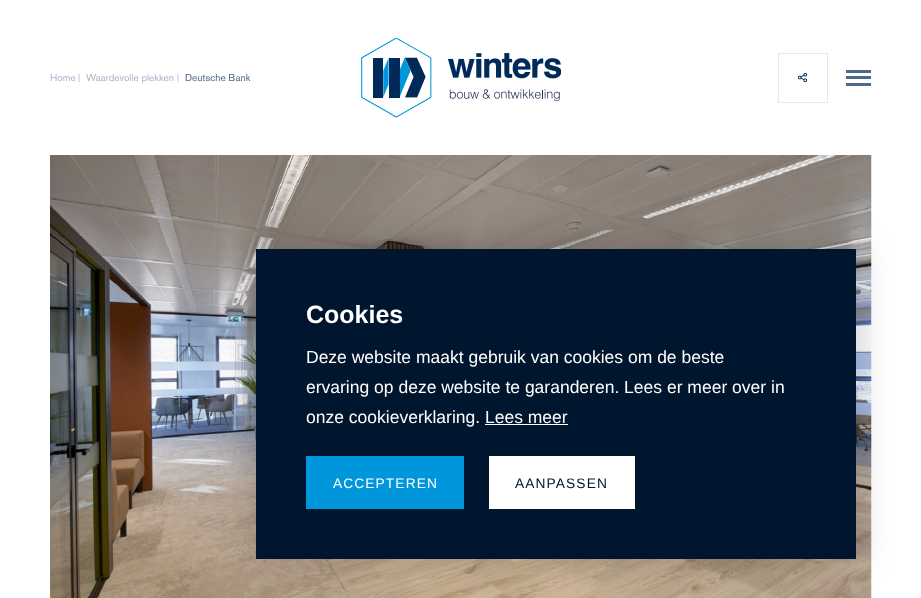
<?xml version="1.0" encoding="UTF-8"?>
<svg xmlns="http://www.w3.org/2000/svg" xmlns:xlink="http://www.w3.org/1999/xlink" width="921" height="598">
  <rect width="100%" height="100%" fill="#ffffff" />
  <image x="361" y="38" width="200" height="80" xlink:href="image1.png" />
  <rect x="778.5" y="53.5" width="49" height="49" fill="none" stroke="#e5e9ee" />
  <image x="798" y="73" width="10" height="10" xlink:href="image2.png" />
  <rect x="846" y="76" width="25" height="3" fill="#4f6989" />
  <rect x="846" y="70" width="25" height="3" fill="#4f6989" />
  <rect x="846" y="83" width="25" height="3" fill="#4f6989" />
  <image x="50" y="155" width="822" height="443" xlink:href="image3.png" />
  <rect x="256" y="249" width="600" height="310" fill="#000000" fill-opacity="0.2" filter="blur(19px)" />
  <rect x="256" y="249" width="600" height="310" fill="#00162e" />
  <rect x="485" y="424" width="83" height="1" fill="#ffffff" />
  <rect x="306" y="456" width="158" height="53" fill="#0096db" />
  <rect x="489" y="456" width="146" height="53" fill="#ffffff" />
  <text x="50" y="81" style="font-family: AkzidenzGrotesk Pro; font-size: 10px; fill: #a7b4c4">Home</text>
  <text x="78" y="80" style="font-family: Liberation Serif; font-size: 9px; font-weight: bold; fill: #a7b4c4">|</text>
  <text x="86" y="81" style="font-family: AkzidenzGrotesk Pro; font-size: 10px; fill: #a7b4c4">Waardevolle plekken</text>
  <text x="177" y="80" style="font-family: Liberation Serif; font-size: 9px; font-weight: bold; fill: #a7b4c4">|</text>
  <text x="185" y="81" style="font-family: AkzidenzGrotesk Pro; font-size: 10px; fill: #4f6989">Deutsche Bank</text>
  <text x="306" y="323" style="font-family: Liberation Sans; font-size: 25px; font-weight: bold; fill: #ffffff">Cookies</text>
  <text x="306" y="363" style="font-family: Liberation Sans; font-size: 17.5px; fill: #ffffff">Deze website maakt gebruik van cookies om de beste</text>
  <text x="306" y="393" style="font-family: Liberation Sans; font-size: 17.5px; fill: #ffffff">ervaring op deze website te garanderen. Lees er meer over in</text>
  <text x="306" y="423" style="font-family: Liberation Sans; font-size: 17.5px; fill: #ffffff">onze cookieverklaring. Lees meer</text>
  <text x="333" y="488" style="font-family: Liberation Sans; font-size: 13.75px; letter-spacing: 1.1px; fill: #ffffff">ACCEPTEREN</text>
  <text x="515" y="488" style="font-family: Liberation Sans; font-size: 13.75px; letter-spacing: 1.1px; fill: #00162e">AANPASSEN</text>
</svg>
